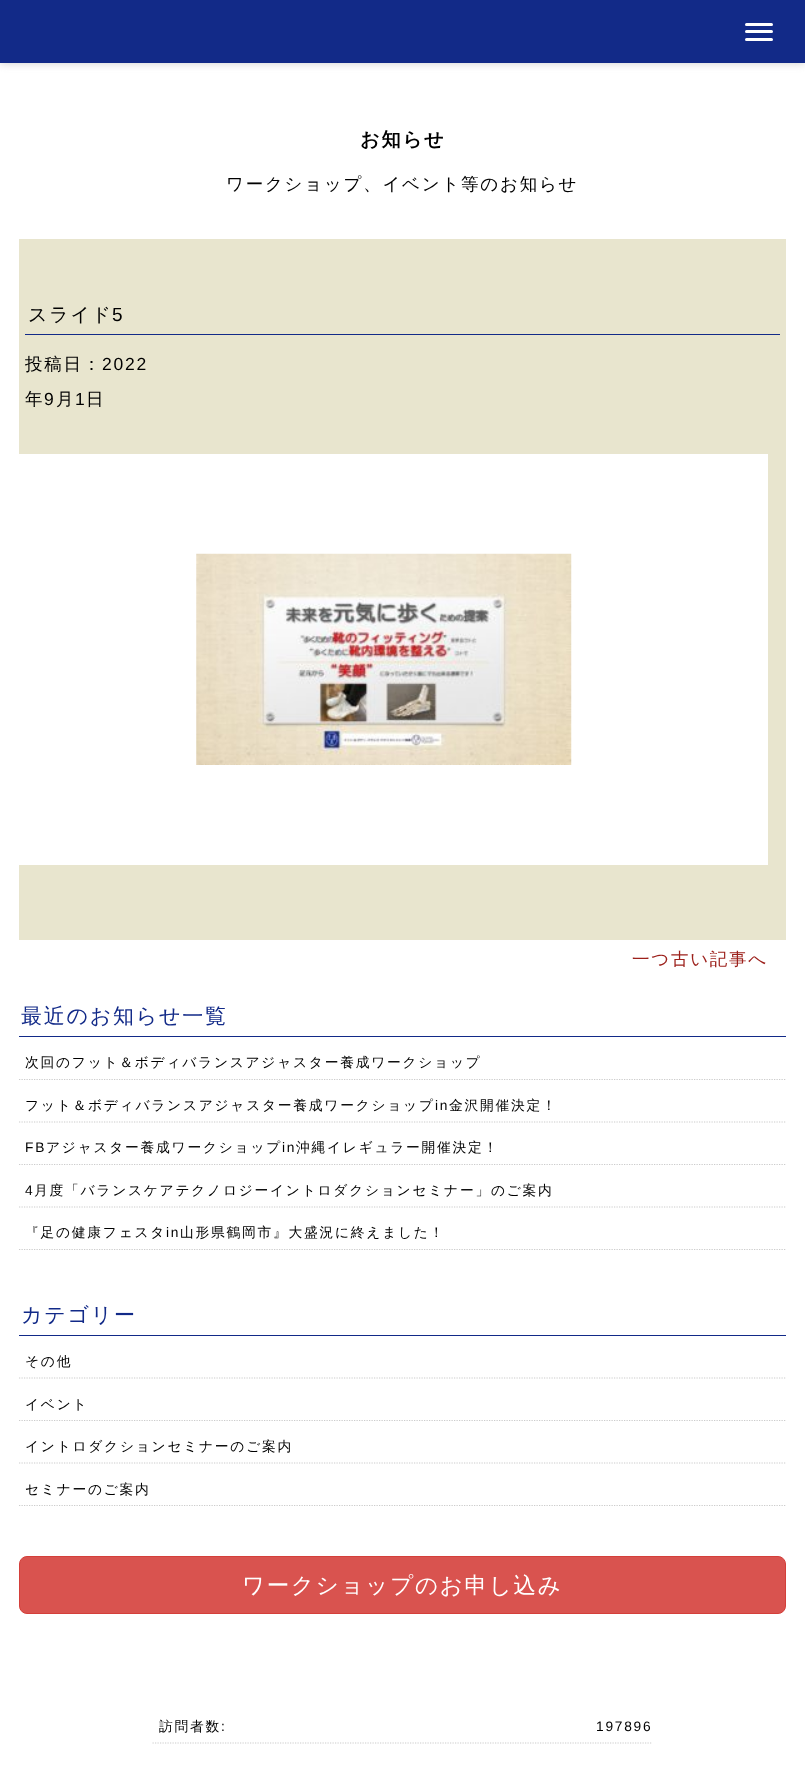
<?xml version="1.0" encoding="UTF-8"?>
<svg xmlns="http://www.w3.org/2000/svg" xmlns:xlink="http://www.w3.org/1999/xlink" width="805" height="1783">
  <rect width="100%" height="100%" fill="#ffffff" />
  <rect width="805" height="63" fill="#cccccc" filter="blur(4px)" />
  <rect width="805" height="63" fill="#122a88" />
  <rect x="745" y="23" width="28" height="3" rx="1.5" fill="#ffffff" />
  <rect x="745" y="30" width="28" height="3" rx="1.5" fill="#ffffff" />
  <rect x="745" y="38" width="28" height="3" rx="1.5" fill="#ffffff" />
  <rect x="19" y="239" width="767" height="701" fill="#e8e5ce" />
  <rect x="25" y="334" width="755" height="1" fill="#122a88" />
  <rect x="19" y="454" width="749" height="411" fill="#ffffff" />
  <image x="196" y="553" width="376" height="212" xlink:href="image1.png" />
  <rect x="19" y="1036" width="767" height="1" fill="#122a88" />
  <path d="M 19 1079.5 h 767" fill="none" stroke="#cccccc" stroke-width="1.2" stroke-dasharray="1.25 1.25" />
  <path d="M 19 1122 h 767" fill="none" stroke="#cccccc" stroke-width="1.2" stroke-dasharray="1.25 1.25" />
  <path d="M 19 1164.5 h 767" fill="none" stroke="#cccccc" stroke-width="1.2" stroke-dasharray="1.25 1.25" />
  <path d="M 19 1207 h 767" fill="none" stroke="#cccccc" stroke-width="1.2" stroke-dasharray="1.25 1.25" />
  <path d="M 19 1249.5 h 767" fill="none" stroke="#cccccc" stroke-width="1.2" stroke-dasharray="1.25 1.25" />
  <rect x="19" y="1335" width="767" height="1" fill="#122a88" />
  <path d="M 19 1378 h 767" fill="none" stroke="#cccccc" stroke-width="1.2" stroke-dasharray="1.25 1.25" />
  <path d="M 19 1420.5 h 767" fill="none" stroke="#cccccc" stroke-width="1.2" stroke-dasharray="1.25 1.25" />
  <path d="M 19 1463 h 767" fill="none" stroke="#cccccc" stroke-width="1.2" stroke-dasharray="1.25 1.25" />
  <path d="M 19 1505.5 h 767" fill="none" stroke="#cccccc" stroke-width="1.2" stroke-dasharray="1.25 1.25" />
  <rect x="19.5" y="1556.5" width="766" height="57" rx="7.5" fill="#d9534f" stroke="#d43f3a" />
  <path d="M 152.5 1743 h 500" fill="none" stroke="#cccccc" stroke-width="1.2" stroke-dasharray="1.25 1.25" />
  <text x="360" y="146" style="font-family: WenQuanYi Zen Hei; font-size: 19.25px; font-weight: bold; letter-spacing: 1.75px; fill: #000000">お知らせ</text>
  <text x="226" y="190" style="font-family: WenQuanYi Zen Hei; font-size: 17.5px; font-weight: 500; letter-spacing: 1.75px; fill: #000000">ワークショップ、イベント等のお知らせ</text>
  <text x="28" y="321" style="font-family: WenQuanYi Zen Hei; font-size: 19px; font-weight: 500; letter-spacing: 1.75px; fill: #000000">スライド</text>
  <text x="112" y="321" style="font-family: Liberation Sans; font-size: 19px; letter-spacing: 1.75px; fill: #000000">5</text>
  <text x="25" y="370" style="font-family: WenQuanYi Zen Hei; font-size: 17.5px; font-weight: 500; letter-spacing: 1.75px; fill: #000000">投稿日：</text>
  <text x="102" y="370" style="font-family: Liberation Sans; font-size: 17.5px; letter-spacing: 1.75px; fill: #000000">2022</text>
  <text x="25" y="405" style="font-family: WenQuanYi Zen Hei; font-size: 17.5px; font-weight: 500; letter-spacing: 1.75px; fill: #000000">年</text>
  <text x="44" y="405" style="font-family: Liberation Sans; font-size: 17.5px; letter-spacing: 1.75px; fill: #000000">9</text>
  <text x="56" y="405" style="font-family: WenQuanYi Zen Hei; font-size: 17.5px; font-weight: 500; letter-spacing: 1.75px; fill: #000000">月</text>
  <text x="75" y="405" style="font-family: Liberation Sans; font-size: 17.5px; letter-spacing: 1.75px; fill: #000000">1</text>
  <text x="86" y="405" style="font-family: WenQuanYi Zen Hei; font-size: 17.5px; font-weight: 500; letter-spacing: 1.75px; fill: #000000">日</text>
  <text x="632" y="965" style="font-family: WenQuanYi Zen Hei; font-size: 17.5px; font-weight: 500; letter-spacing: 1.75px; fill: #9c201b">一つ古い記事へ</text>
  <text x="21" y="1023" style="font-family: WenQuanYi Zen Hei; font-size: 21px; font-weight: 500; letter-spacing: 1.75px; fill: #122a88">最近のお知らせ一覧</text>
  <text x="25" y="1067" style="font-family: WenQuanYi Zen Hei; font-size: 13.75px; font-weight: 500; letter-spacing: 1.75px; fill: #000000">次回のフット＆ボディバランスアジャスター養成ワークショップ</text>
  <text x="25" y="1110" style="font-family: WenQuanYi Zen Hei; font-size: 13.75px; font-weight: 500; letter-spacing: 1.75px; fill: #000000">フット＆ボディバランスアジャスター養成ワークショップ</text>
  <text x="435" y="1110" style="font-family: Liberation Sans; font-size: 13.75px; letter-spacing: 1.75px; fill: #000000">in</text>
  <text x="449" y="1110" style="font-family: WenQuanYi Zen Hei; font-size: 13.75px; font-weight: 500; letter-spacing: 1.75px; fill: #000000">金沢開催決定！</text>
  <text x="25" y="1152" style="font-family: Liberation Sans; font-size: 13.75px; letter-spacing: 1.75px; fill: #000000">FB</text>
  <text x="46" y="1152" style="font-family: WenQuanYi Zen Hei; font-size: 13.75px; font-weight: 500; letter-spacing: 1.75px; fill: #000000">アジャスター養成ワークショップ</text>
  <text x="282" y="1152" style="font-family: Liberation Sans; font-size: 13.75px; letter-spacing: 1.75px; fill: #000000">in</text>
  <text x="296" y="1152" style="font-family: WenQuanYi Zen Hei; font-size: 13.75px; font-weight: 500; letter-spacing: 1.75px; fill: #000000">沖縄イレギュラー開催決定！</text>
  <text x="25" y="1195" style="font-family: Liberation Sans; font-size: 13.75px; letter-spacing: 1.75px; fill: #000000">4</text>
  <text x="34" y="1195" style="font-family: WenQuanYi Zen Hei; font-size: 13.75px; font-weight: 500; letter-spacing: 1.75px; fill: #000000">月度「バランスケアテクノロジーイントロダクションセミナー」のご案内</text>
  <text x="25" y="1237" style="font-family: WenQuanYi Zen Hei; font-size: 13.75px; font-weight: 500; letter-spacing: 1.75px; fill: #000000">『足の健康フェスタ</text>
  <text x="166" y="1237" style="font-family: Liberation Sans; font-size: 13.75px; letter-spacing: 1.75px; fill: #000000">in</text>
  <text x="180" y="1237" style="font-family: WenQuanYi Zen Hei; font-size: 13.75px; font-weight: 500; letter-spacing: 1.75px; fill: #000000">山形県鶴岡市』大盛況に終えました！</text>
  <text x="21" y="1322" style="font-family: WenQuanYi Zen Hei; font-size: 21px; font-weight: 500; letter-spacing: 1.75px; fill: #122a88">カテゴリー</text>
  <text x="25" y="1366" style="font-family: WenQuanYi Zen Hei; font-size: 13.75px; font-weight: 500; letter-spacing: 1.75px; fill: #000000">その他</text>
  <text x="25" y="1409" style="font-family: WenQuanYi Zen Hei; font-size: 13.75px; font-weight: 500; letter-spacing: 1.75px; fill: #000000">イベント</text>
  <text x="25" y="1451" style="font-family: WenQuanYi Zen Hei; font-size: 13.75px; font-weight: 500; letter-spacing: 1.75px; fill: #000000">イントロダクションセミナーのご案内</text>
  <text x="25" y="1494" style="font-family: WenQuanYi Zen Hei; font-size: 13.75px; font-weight: 500; letter-spacing: 1.75px; fill: #000000">セミナーのご案内</text>
  <text x="242" y="1593" style="font-family: WenQuanYi Zen Hei; font-size: 22.5px; font-weight: 500; letter-spacing: 1.75px; fill: #ffffff">ワークショップのお申し込み</text>
  <text x="159" y="1731" style="font-family: WenQuanYi Zen Hei; font-size: 13.75px; font-weight: 500; letter-spacing: 1.75px; fill: #000000">訪問者数</text>
  <text x="221" y="1731" style="font-family: Liberation Sans; font-size: 13.75px; letter-spacing: 1.75px; fill: #000000">:</text>
  <text x="596" y="1731" style="font-family: Liberation Sans; font-size: 13.75px; letter-spacing: 1.75px; fill: #000000">197896</text>
</svg>
